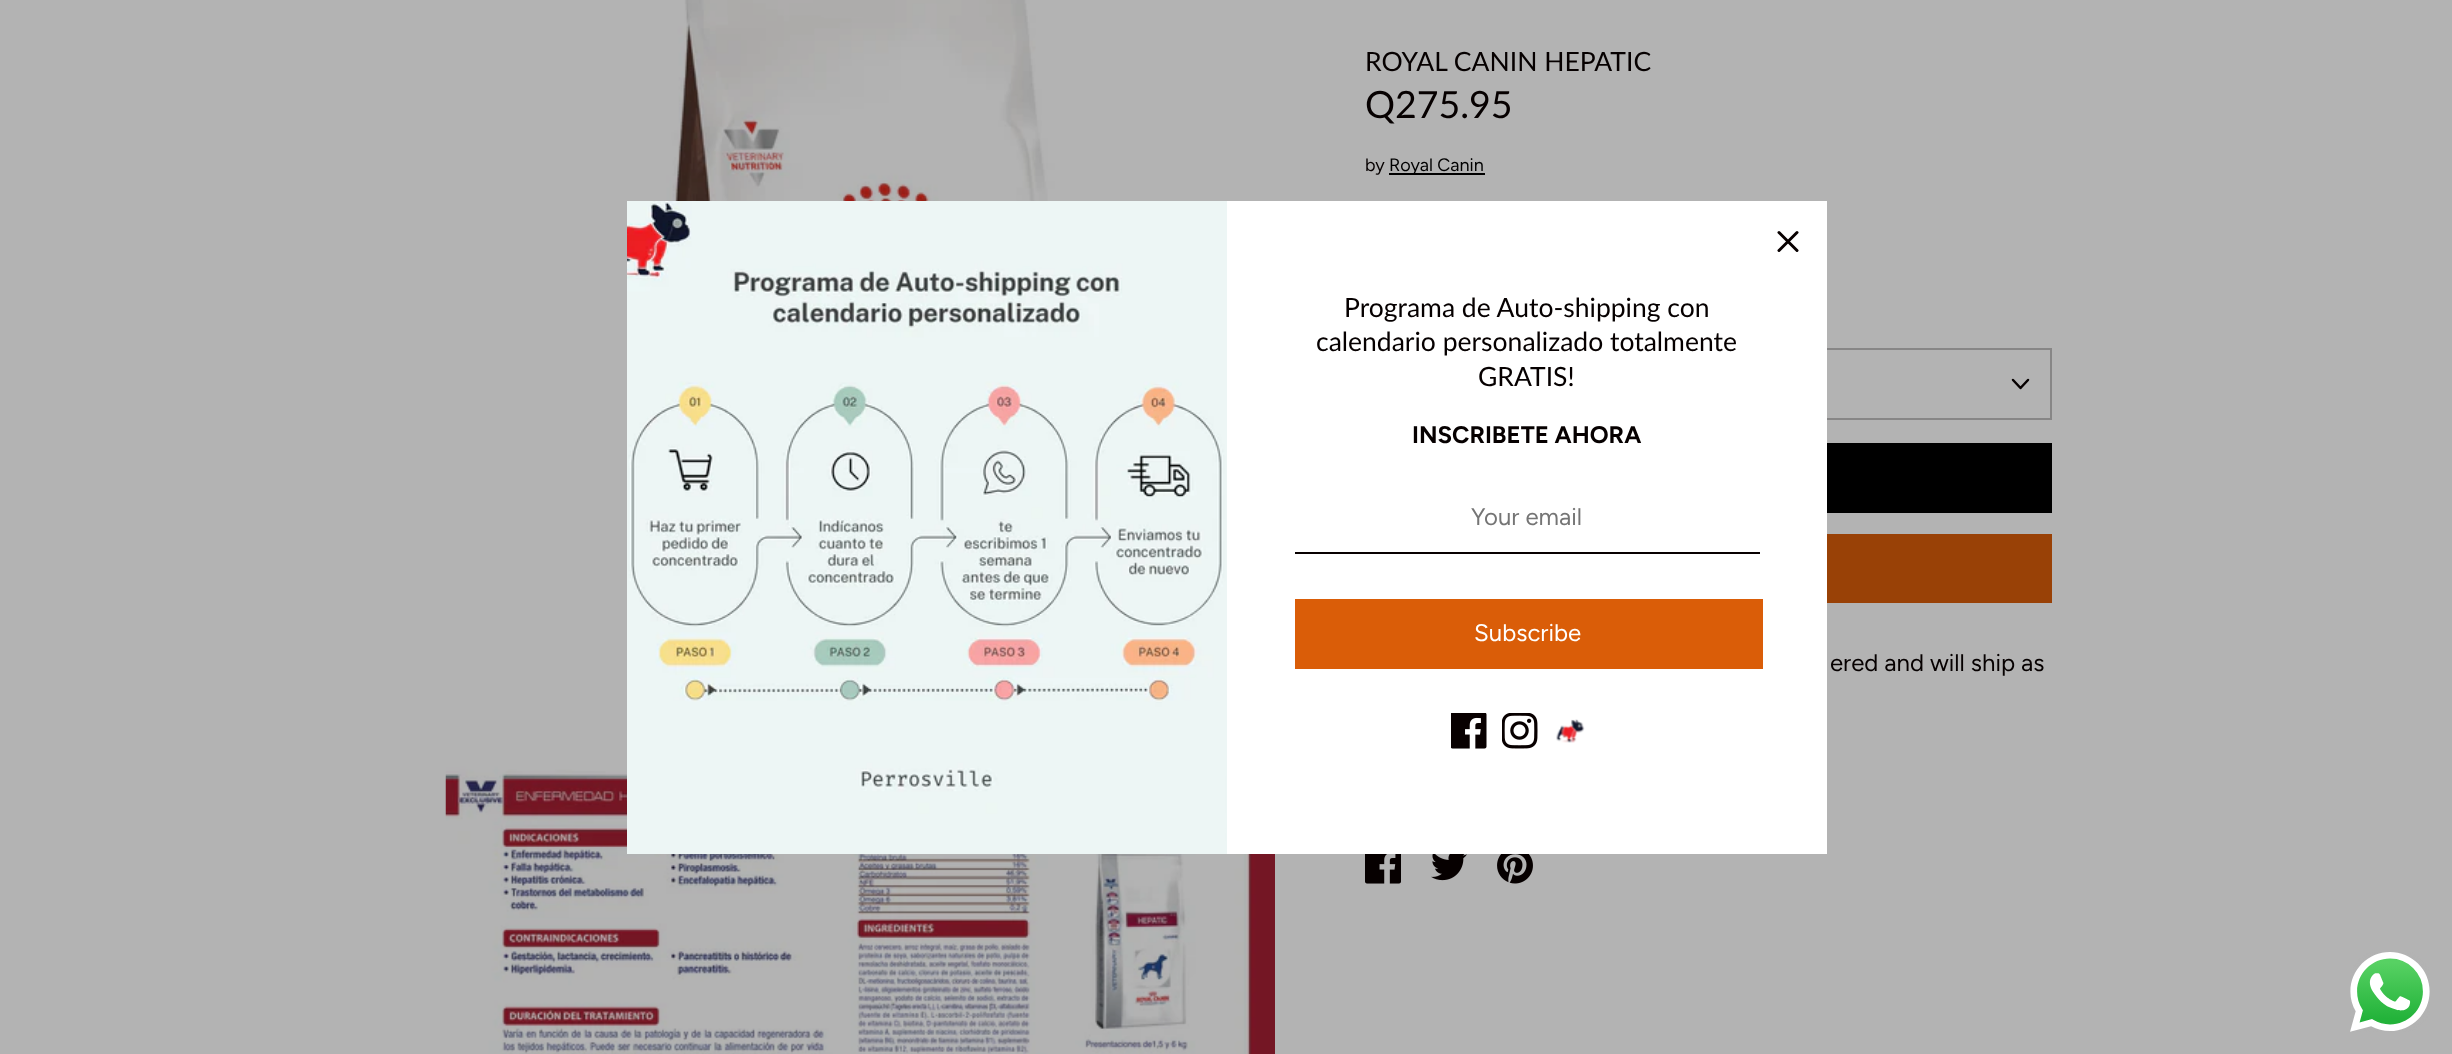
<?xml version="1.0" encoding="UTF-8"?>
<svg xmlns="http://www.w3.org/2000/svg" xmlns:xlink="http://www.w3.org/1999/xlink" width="2452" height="1054">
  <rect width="100%" height="100%" fill="#b3b3b3" />
  <image x="629" y="0" width="450" height="201" xlink:href="image1.png" />
  <image x="445" y="756" width="830" height="298" xlink:href="image2.png" />
  <rect x="1389" y="173" width="96" height="2" fill="#000000" />
  <rect x="1366" y="349" width="685" height="70" fill="none" stroke="#878686" stroke-width="2" />
  <path d="M 2013 380 l 7.5 8 l 7.5 -8" fill="none" stroke="#060000" stroke-width="2.5" stroke-linecap="round" stroke-linejoin="round" />
  <rect x="1366" y="444" width="685" height="68" fill="none" stroke="#000000" stroke-width="2" />
  <rect x="1827" y="445" width="223" height="66" fill="#000000" />
  <rect x="1366" y="535" width="685" height="67" fill="none" stroke="#994106" stroke-width="2" />
  <rect x="1827" y="536" width="223" height="65" fill="#994106" />
  <image x="1365" y="854" width="36" height="30" xlink:href="image3.png" />
  <image x="1431" y="854" width="36" height="27" xlink:href="image4.png" />
  <image x="1497" y="854" width="36" height="30" xlink:href="image5.png" />
  <rect x="1226" y="201" width="601" height="653" fill="#ffffff" />
  <path d="M 1797 232.5 l -18 18 m 0 -18 l 18 18" fill="none" stroke="#080000" stroke-width="3" stroke-linecap="round" />
  <image x="627" y="201" width="600" height="653" xlink:href="image6.png" />
  <rect x="1295" y="552" width="465" height="2" fill="#080000" />
  <rect x="1296" y="600" width="466" height="68" fill="none" stroke="#da5d08" stroke-width="2" />
  <rect x="1297" y="601" width="464" height="66" fill="#da5d08" />
  <image x="1451" y="713" width="36" height="36" xlink:href="image7.png" />
  <image x="1502" y="713" width="36" height="36" xlink:href="image8.png" />
  <image x="1556" y="719" width="29" height="24" xlink:href="image9.png" />
  <image x="2350" y="952" width="80" height="80" xlink:href="image10.png" />
  <text x="1365" y="71" style="font-family: Lato; font-size: 26.5px; fill: #060000">ROYAL CANIN HEPATIC</text>
  <text x="1365" y="118" style="font-family: Lato; font-size: 37.5px; fill: #060000">Q275.95</text>
  <text x="1365" y="171" style="font-family: Figtree; font-size: 18px; fill: #060000">by</text>
  <text x="1389" y="171" style="font-family: Figtree; font-size: 18px; fill: #000000">Royal Canin</text>
  <text x="1830" y="671" style="font-family: Figtree; font-size: 24px; fill: #060000">ered and will ship as</text>
  <text x="1344" y="317" style="font-family: Lato; font-size: 26.5px; fill: #060000">Programa de Auto-shipping con</text>
  <text x="1316" y="351" style="font-family: Lato; font-size: 26.5px; fill: #060000">calendario personalizado totalmente</text>
  <text x="1478" y="386" style="font-family: Lato; font-size: 26.5px; fill: #060000">GRATIS!</text>
  <text x="1412" y="443" style="font-family: Figtree; font-size: 24px; font-weight: bold; fill: #060000">INSCRIBETE AHORA</text>
  <text x="1471" y="525" style="font-family: Figtree; font-size: 24px; fill: #757575">Your email</text>
  <text x="1474" y="641" style="font-family: Figtree; font-size: 24px; fill: #ffffff">Subscribe</text>
</svg>
